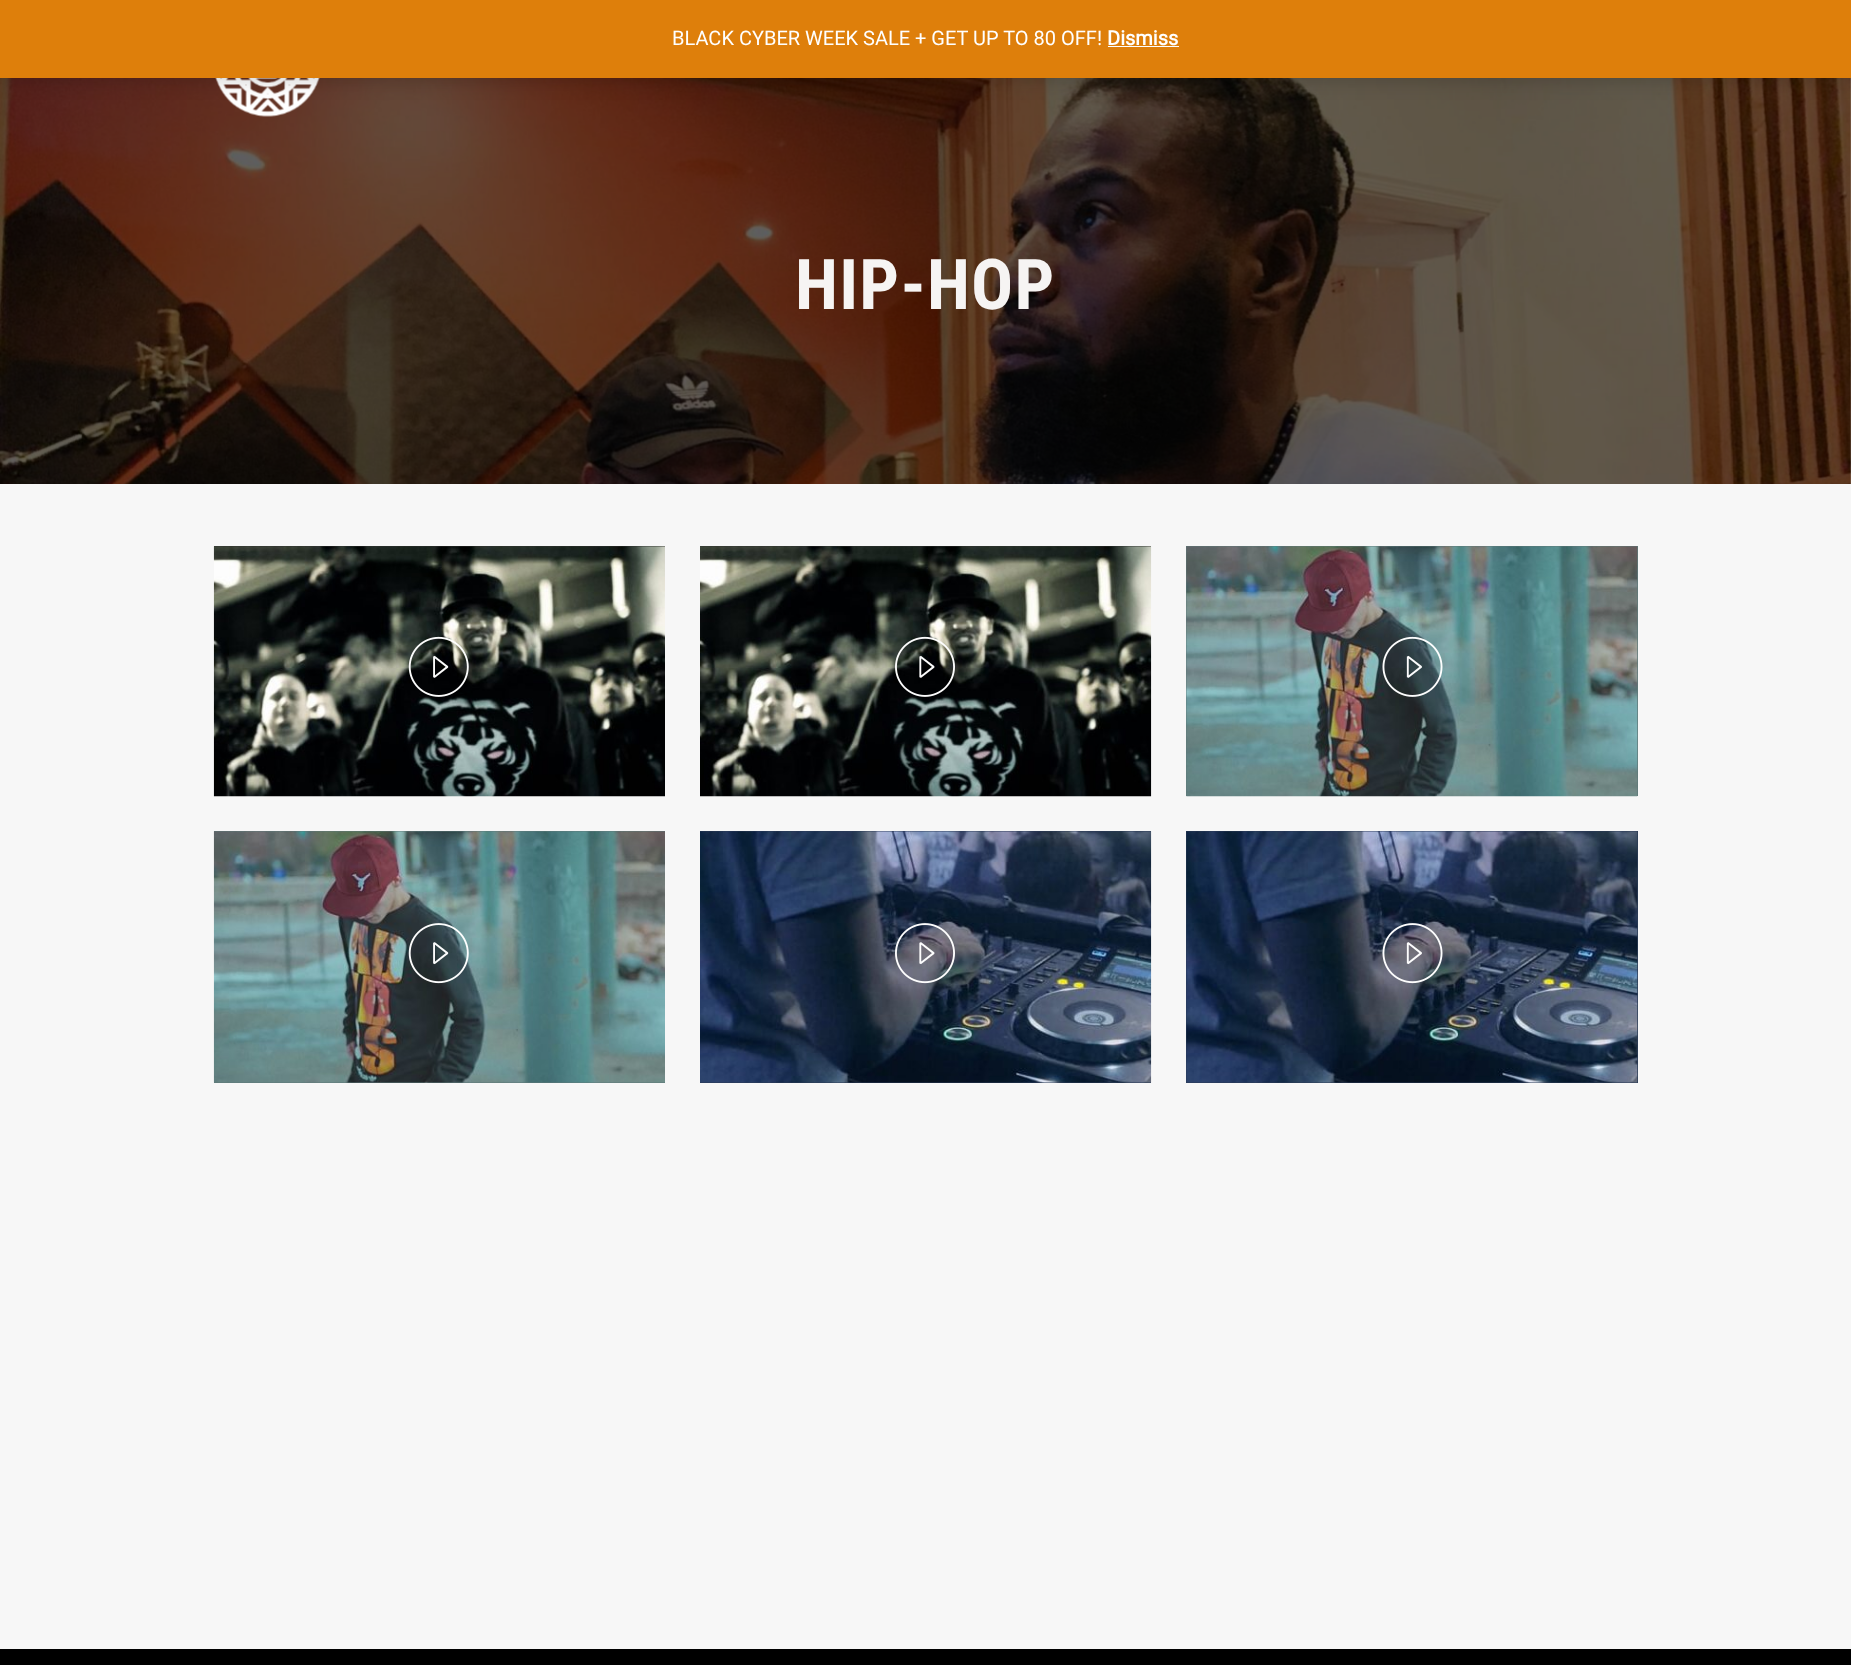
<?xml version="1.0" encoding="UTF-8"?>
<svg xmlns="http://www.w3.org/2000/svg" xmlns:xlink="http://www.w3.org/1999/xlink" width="1851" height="1665">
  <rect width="100%" height="100%" fill="#ffffff" />
  <image x="0" y="78" width="1851" height="406" xlink:href="image2.png" />
  <image x="215" y="78" width="105" height="39" xlink:href="image1.png" />
  <rect y="1" width="1851" height="78" fill="#000000" fill-opacity="0.2" filter="blur(10px)" />
  <rect width="1851" height="78" fill="#de7f0b" />
  <rect x="1108" y="46" width="71" height="1" fill="#ffffff" />
  <rect y="484" width="1851" height="1165" fill="#f7f7f7" />
  <rect x="214" y="546" width="451" height="1" fill="#303430" />
  <image x="213" y="546" width="452" height="251" xlink:href="image3.png" />
  <image x="408" y="636" width="61" height="61" xlink:href="image4.png" />
  <rect x="700" y="546" width="451" height="1" fill="#303430" />
  <image x="700" y="546" width="452" height="251" xlink:href="image5.png" />
  <image x="895" y="636" width="60" height="61" xlink:href="image6.png" />
  <rect x="1186" y="546" width="452" height="250" fill="#5f7878" />
  <image x="1186" y="546" width="452" height="251" xlink:href="image7.png" />
  <image x="1382" y="636" width="61" height="61" xlink:href="image8.png" />
  <rect x="214" y="831" width="451" height="252" fill="#5f7878" />
  <image x="213" y="831" width="452" height="252" xlink:href="image9.png" />
  <image x="408" y="923" width="61" height="61" xlink:href="image10.png" />
  <rect x="700" y="831" width="451" height="252" fill="#2a3b55" />
  <image x="700" y="831" width="452" height="252" xlink:href="image11.png" />
  <image x="895" y="923" width="60" height="61" xlink:href="image12.png" />
  <rect x="1186" y="831" width="452" height="252" fill="#2a3b55" />
  <image x="1186" y="831" width="452" height="252" xlink:href="image13.png" />
  <image x="1382" y="923" width="61" height="61" xlink:href="image14.png" />
  <rect y="1649" width="1851" height="16" fill="#000000" />
  <text x="672" y="45" style="font-family: Roboto; font-size: 20px; fill: #ffffff">BLACK CYBER WEEK SALE + GET UP TO 80 OFF!</text>
  <text x="1107" y="45" style="font-family: Roboto; font-size: 20px; font-weight: bold; fill: #ffffff">Dismiss</text>
  <text x="795" y="309" style="font-family: Roboto Condensed; font-size: 70px; font-weight: bold; letter-spacing: 1.25px; fill: #f6f4f3">HIP-HOP</text>
</svg>
